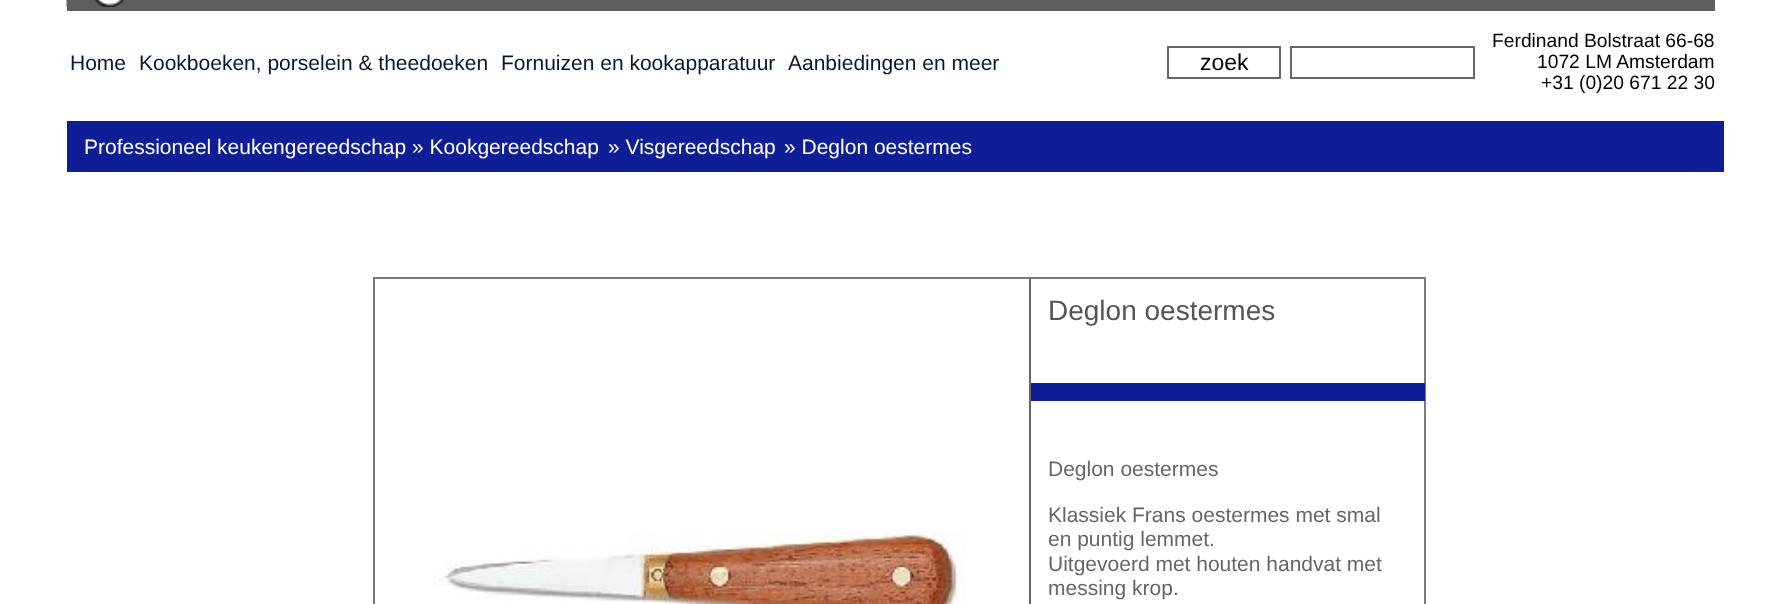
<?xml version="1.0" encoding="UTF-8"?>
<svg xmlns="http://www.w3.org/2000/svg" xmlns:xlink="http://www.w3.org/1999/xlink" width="1787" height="604">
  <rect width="100%" height="100%" fill="#ffffff" />
  <rect x="67" width="1648" height="11" fill="#5e5e5e" />
  <image x="66" y="0" width="59" height="7" xlink:href="image1.png" />
  <rect x="1168" y="47" width="112" height="31" fill="none" stroke="#666666" stroke-width="2" />
  <rect x="1291" y="47" width="183" height="31" fill="none" stroke="#666666" stroke-width="2" />
  <rect x="67" y="121" width="1657" height="51" fill="#0f1e96" />
  <rect x="374" y="278" width="1051" height="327" fill="none" stroke="#7a7a7a" stroke-width="2" />
  <rect x="1029" y="278" width="2" height="326" fill="#666666" />
  <image x="434" y="531" width="533" height="73" xlink:href="image2.png" />
  <rect x="1031" y="383" width="394" height="18" fill="#0f1e96" />
  <text x="70" y="70" style="font-family: Liberation Sans; font-size: 21px; fill: #001a35">Home</text>
  <text x="139" y="70" style="font-family: Liberation Sans; font-size: 21px; fill: #001a35">Kookboeken, porselein &amp; theedoeken</text>
  <text x="501" y="70" style="font-family: Liberation Sans; font-size: 21px; fill: #001a35">Fornuizen en kookapparatuur</text>
  <text x="788" y="70" style="font-family: Liberation Sans; font-size: 21px; fill: #001a35">Aanbiedingen en meer</text>
  <text x="1200" y="70" style="font-family: Liberation Sans; font-size: 23px; fill: #000000">zoek</text>
  <text x="1492" y="47" style="font-family: Liberation Sans; font-size: 19.25px; fill: #000000">Ferdinand Bolstraat 66-68</text>
  <text x="1537" y="68" style="font-family: Liberation Sans; font-size: 19.25px; fill: #000000">1072 LM Amsterdam</text>
  <text x="1541" y="89" style="font-family: Liberation Sans; font-size: 19.25px; fill: #000000">+31 (0)20 671 22 30</text>
  <text x="84" y="154" style="font-family: Liberation Sans; font-size: 21px; fill: #ffffff">Professioneel keukengereedschap » Kookgereedschap</text>
  <text x="608" y="154" style="font-family: Liberation Sans; font-size: 21px; fill: #ffffff">» Visgereedschap</text>
  <text x="784" y="154" style="font-family: Liberation Sans; font-size: 21px; fill: #ffffff">» Deglon oestermes</text>
  <text x="1048" y="320" style="font-family: Liberation Sans; font-size: 28px; fill: #555555">Deglon oestermes</text>
  <text x="1048" y="476" style="font-family: Liberation Sans; font-size: 21px; fill: #666666">Deglon oestermes</text>
  <text x="1048" y="522" style="font-family: Liberation Sans; font-size: 21px; fill: #666666">Klassiek Frans oestermes met smal</text>
  <text x="1048" y="546" style="font-family: Liberation Sans; font-size: 21px; fill: #666666">en puntig lemmet.</text>
  <text x="1048" y="571" style="font-family: Liberation Sans; font-size: 21px; fill: #666666">Uitgevoerd met houten handvat met</text>
  <text x="1048" y="595" style="font-family: Liberation Sans; font-size: 21px; fill: #666666">messing krop.</text>
</svg>
